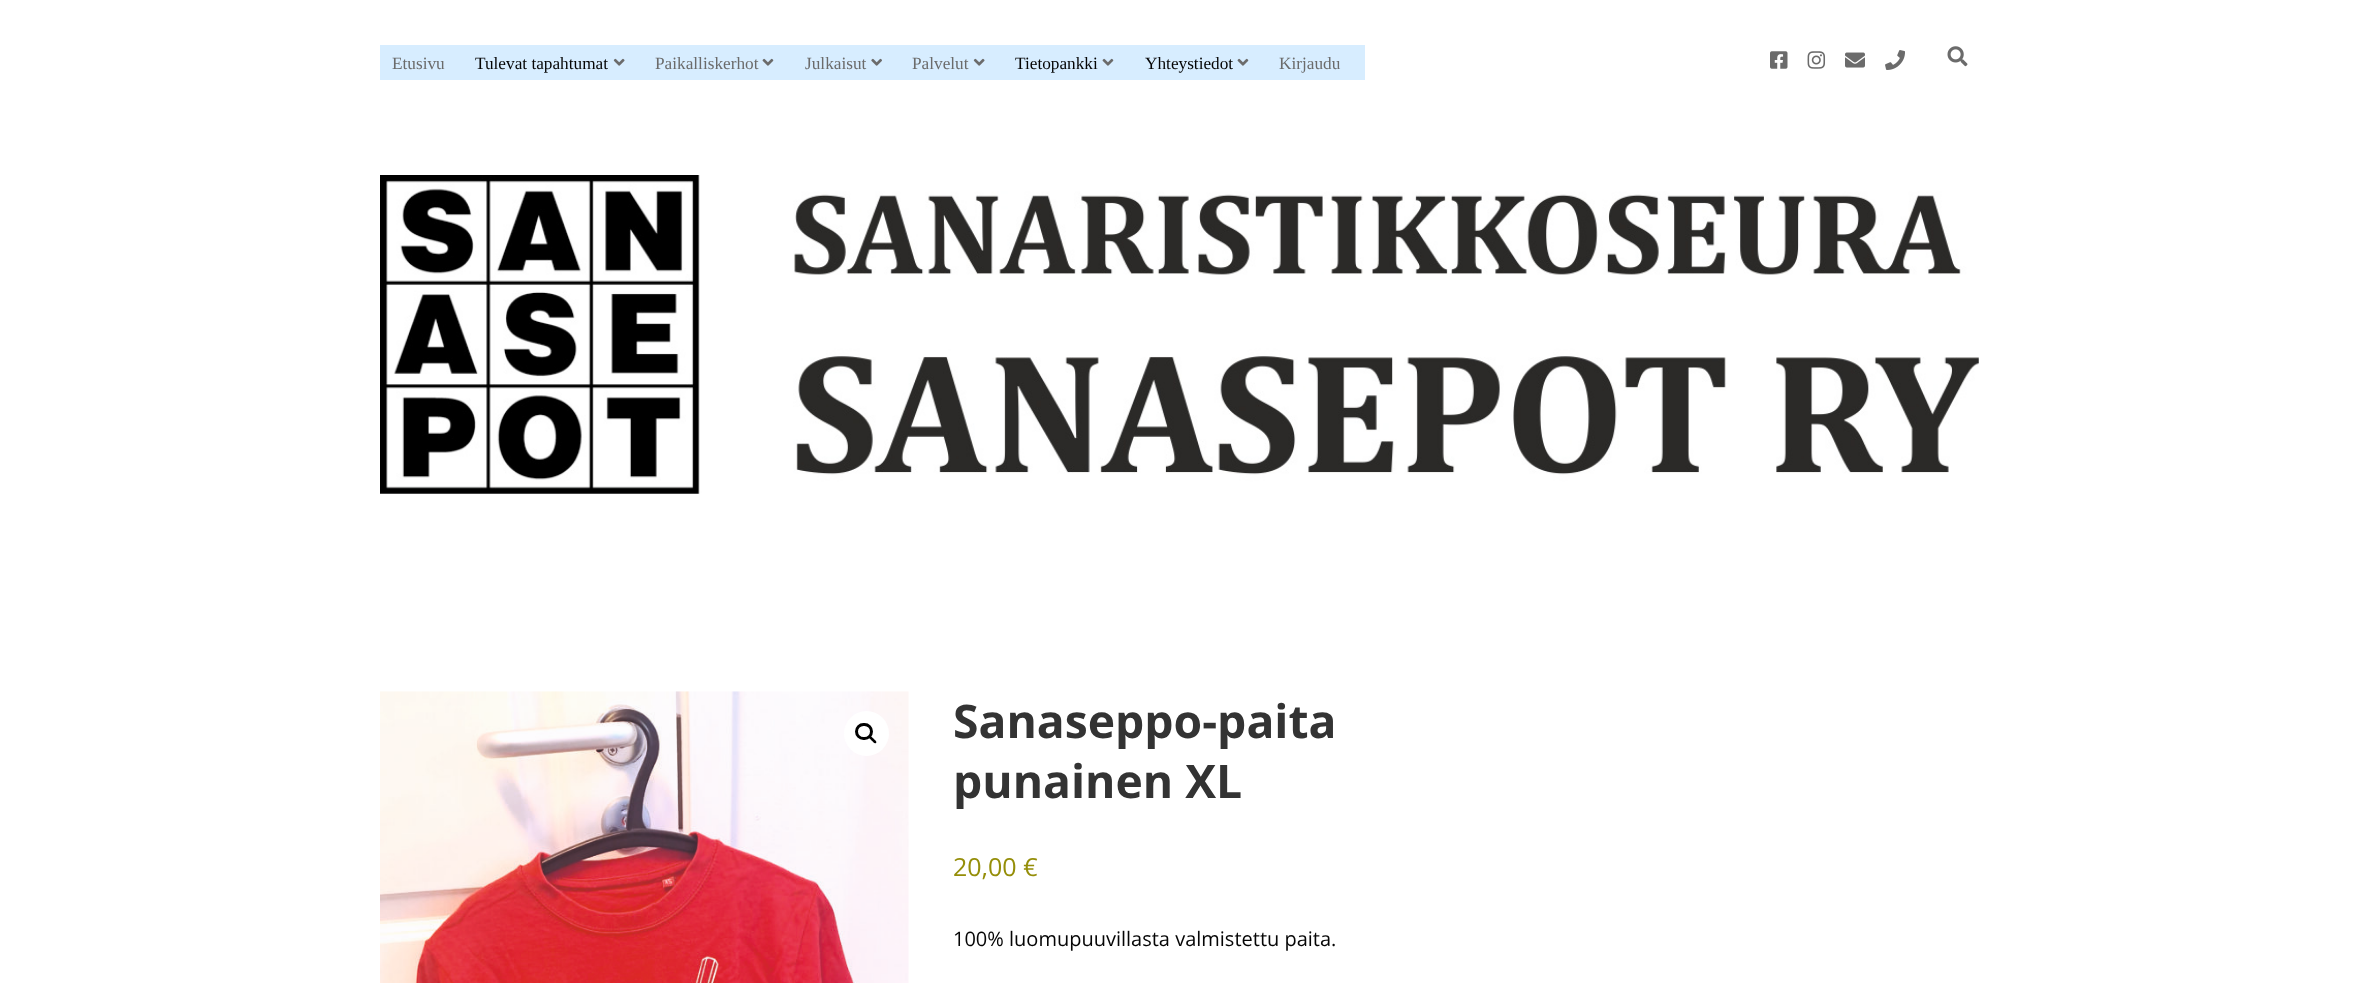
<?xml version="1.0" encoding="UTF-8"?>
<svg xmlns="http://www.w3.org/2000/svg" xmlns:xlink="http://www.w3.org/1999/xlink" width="2358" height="983">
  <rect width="100%" height="100%" fill="#ffffff" />
  <rect x="380" y="45" width="985" height="35" fill="#d7edff" />
  <image x="613" y="58" width="12" height="8" xlink:href="image1.png" />
  <image x="762" y="58" width="12" height="8" xlink:href="image2.png" />
  <image x="871" y="58" width="11" height="8" xlink:href="image3.png" />
  <image x="973" y="58" width="12" height="8" xlink:href="image1.png" />
  <image x="1102" y="58" width="12" height="8" xlink:href="image2.png" />
  <image x="1237" y="58" width="12" height="8" xlink:href="image2.png" />
  <image x="1770" y="51" width="18" height="18" xlink:href="image4.png" />
  <image x="1807" y="51" width="19" height="18" xlink:href="image5.png" />
  <image x="1845" y="52" width="20" height="16" xlink:href="image6.png" />
  <image x="1885" y="50" width="20" height="20" xlink:href="image7.png" />
  <image x="1947" y="46" width="21" height="21" xlink:href="image8.png" />
  <image x="380" y="175" width="1599" height="319" xlink:href="image9.png" />
  <image x="380" y="691" width="529" height="292" xlink:href="image10.png" />
  <circle cx="866.5" cy="733.5" r="22.5" fill="#ffffff" />
  <rect x="856.5" y="724.5" width="15" height="14" rx="7" fill="none" stroke="#000000" stroke-width="3" />
  <path d="M 869 736 c 1.5 -1.5 3.5 2 4.5 2.5 c 0.5 1 4 3 2.5 4.5 c -1.5 1.5 -3.5 -2 -4.5 -2.5 c -0.5 -1 -4 -3 -2.5 -4.5 z" fill="#000000" />
  <text x="392" y="69" style="font-family: Liberation Serif; font-size: 17.25px; fill: #6b6b6b">Etusivu</text>
  <text x="475" y="69" style="font-family: Liberation Serif; font-size: 17.25px; fill: #050505">Tulevat tapahtumat</text>
  <text x="655" y="69" style="font-family: Liberation Serif; font-size: 17.25px; fill: #6b6b6b">Paikalliskerhot</text>
  <text x="805" y="69" style="font-family: Liberation Serif; font-size: 17.25px; fill: #6b6b6b">Julkaisut</text>
  <text x="912" y="69" style="font-family: Liberation Serif; font-size: 17.25px; fill: #6b6b6b">Palvelut</text>
  <text x="1015" y="69" style="font-family: Liberation Serif; font-size: 17.25px; fill: #050505">Tietopankki</text>
  <text x="1145" y="69" style="font-family: Liberation Serif; font-size: 17.25px; fill: #050505">Yhteystiedot</text>
  <text x="1279" y="69" style="font-family: Liberation Serif; font-size: 17.25px; fill: #6b6b6b">Kirjaudu</text>
  <text x="953" y="738" style="font-family: Open Sans; font-size: 46.25px; font-weight: bold; fill: #333333">Sanaseppo-paita</text>
  <text x="953" y="798" style="font-family: Open Sans; font-size: 46.25px; font-weight: bold; fill: #333333">punainen XL</text>
  <text x="953" y="876" style="font-family: Open Sans; font-size: 25px; fill: #958e09">20,00 €</text>
  <text x="953" y="946" style="font-family: Open Sans; font-size: 20px; fill: #050505">100% luomupuuvillasta valmistettu paita.</text>
</svg>
